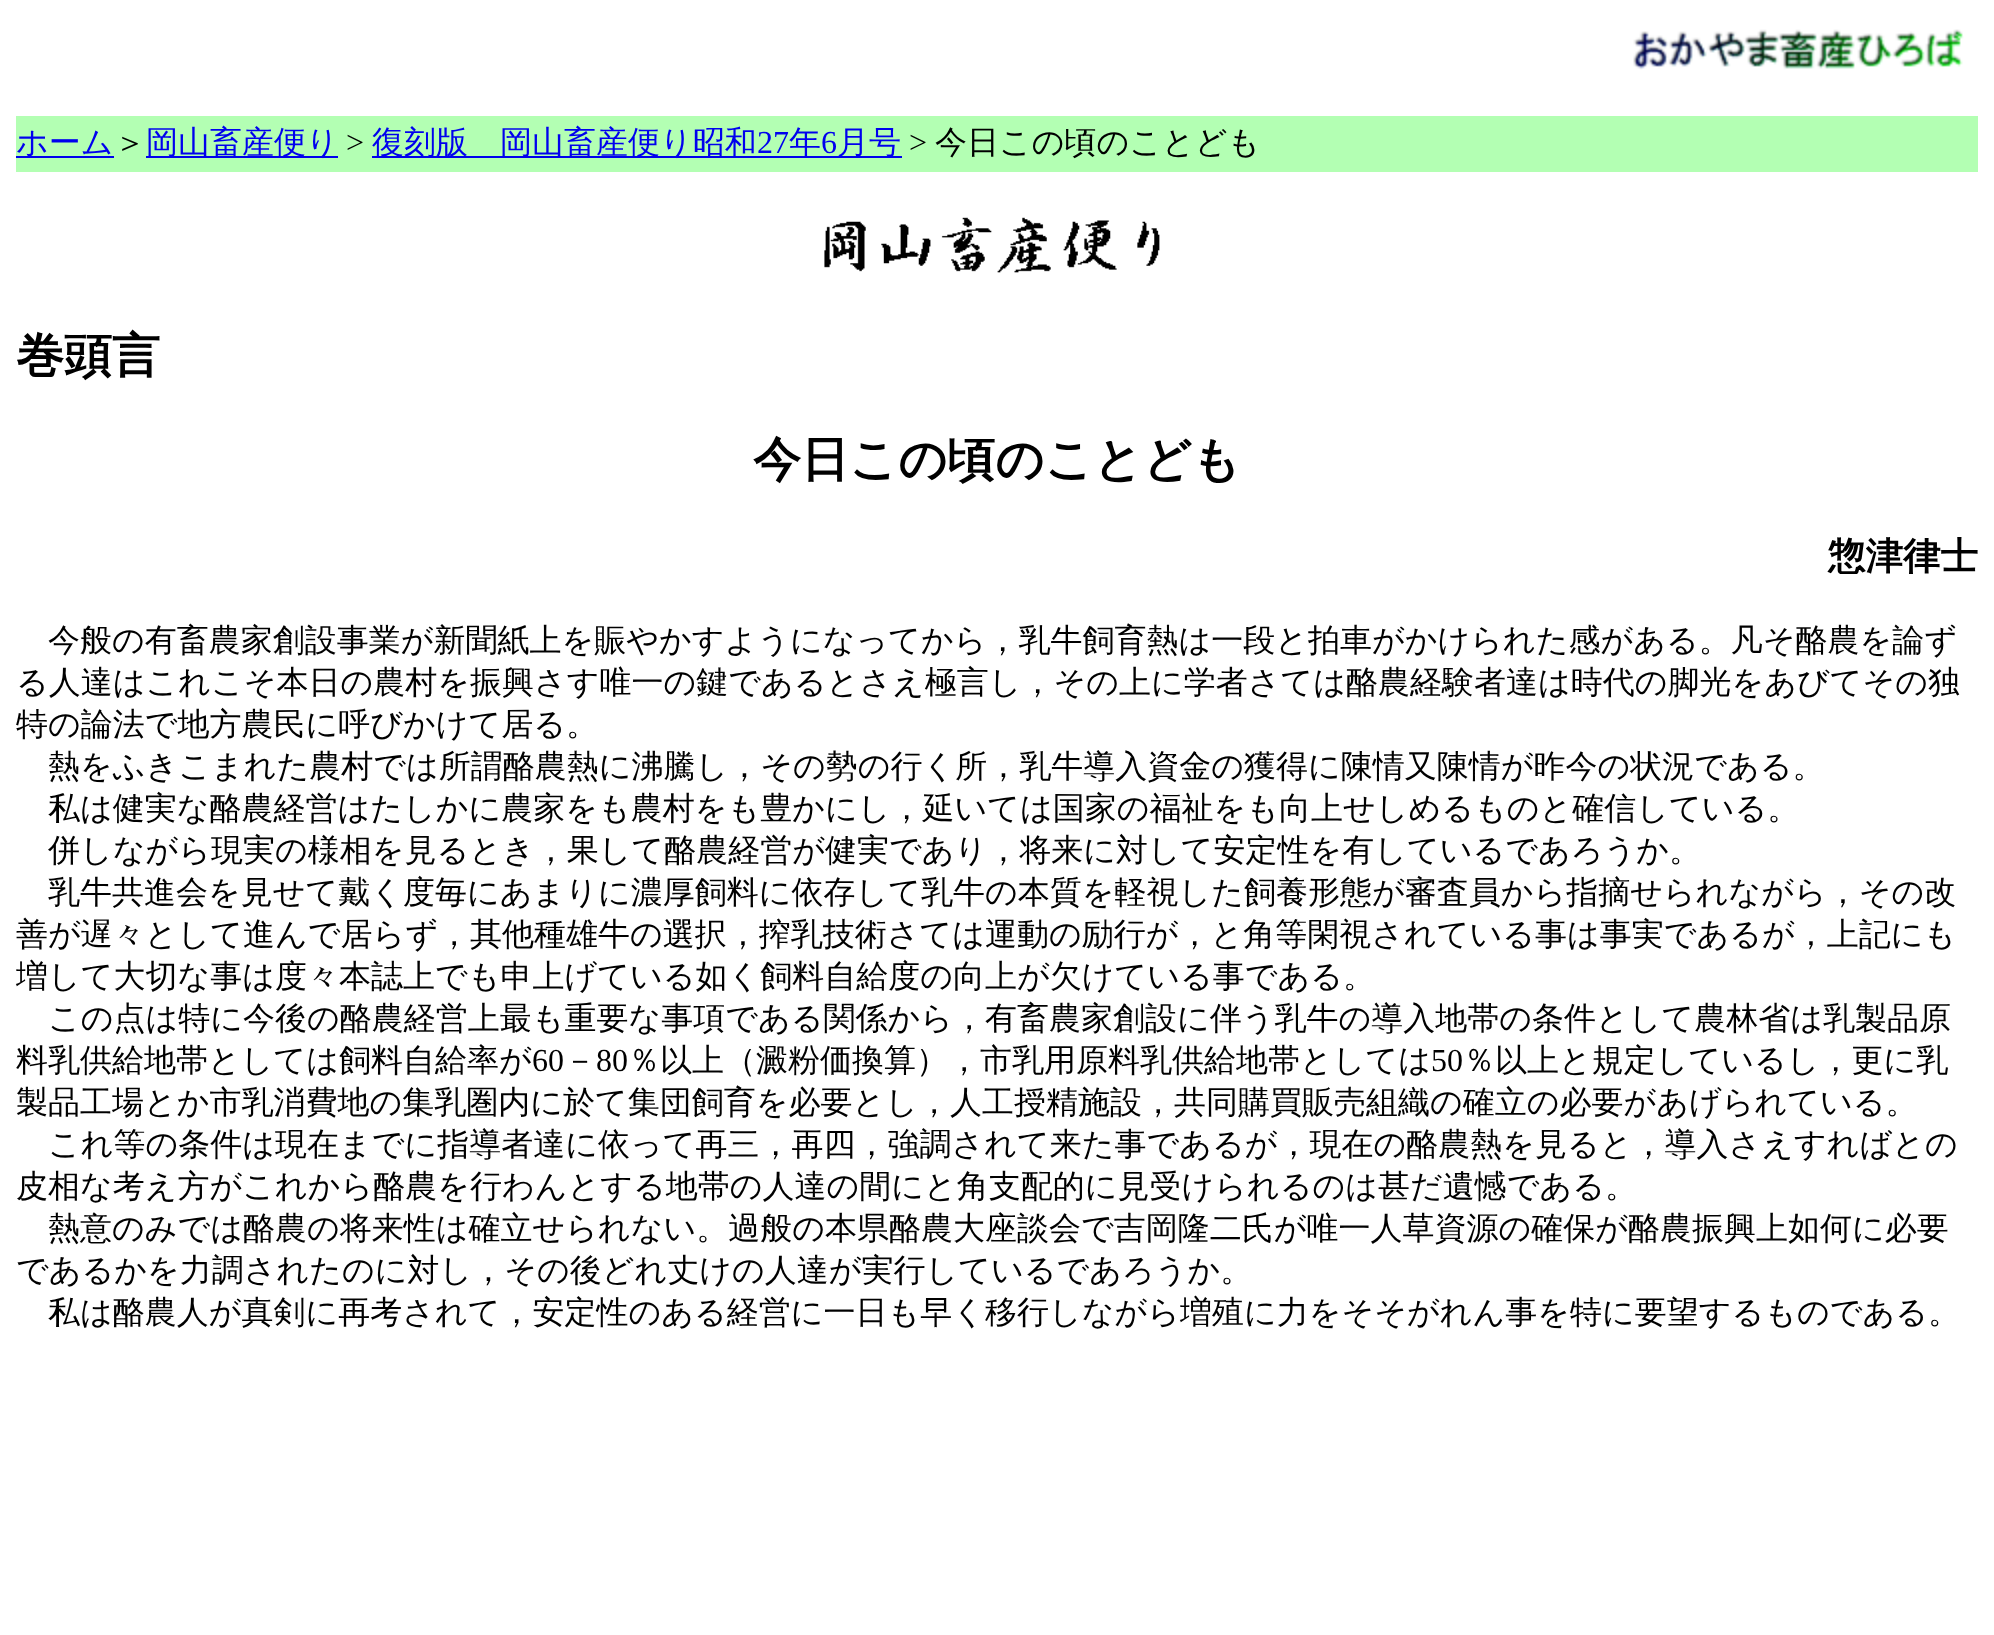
<?xml version="1.0" encoding="UTF-8"?>
<svg xmlns="http://www.w3.org/2000/svg" xmlns:xlink="http://www.w3.org/1999/xlink" width="1994" height="1635">
  <rect width="100%" height="100%" fill="#ffffff" />
  <image x="1633" y="29" width="331" height="41" xlink:href="image1.png" />
  <rect x="16" y="116" width="1962" height="56" fill="#b3ffb3" />
  <rect x="16" y="156" width="98" height="2" fill="#0000ee" />
  <rect x="146" y="156" width="192" height="2" fill="#0000ee" />
  <rect x="372" y="156" width="530" height="2" fill="#0000ee" />
  <image x="824" y="217" width="336" height="56" xlink:href="image2.png" />
  <text x="16" y="153" style="font-family: WenQuanYi Zen Hei; font-size: 32px; font-weight: 500; fill: #0000ee">ホーム</text>
  <text x="114" y="153" style="font-family: WenQuanYi Zen Hei; font-size: 32px; font-weight: 500; fill: #000000">＞</text>
  <text x="146" y="153" style="font-family: WenQuanYi Zen Hei; font-size: 32px; font-weight: 500; fill: #0000ee">岡山畜産便り</text>
  <text x="346" y="153" style="font-family: Liberation Serif; font-size: 32px; fill: #000000">&gt;</text>
  <text x="372" y="153" style="font-family: WenQuanYi Zen Hei; font-size: 32px; font-weight: 500; fill: #0000ee">復刻版　岡山畜産便り昭和</text>
  <text x="757" y="153" style="font-family: Liberation Serif; font-size: 32px; fill: #0000ee">27</text>
  <text x="789" y="153" style="font-family: WenQuanYi Zen Hei; font-size: 32px; font-weight: 500; fill: #0000ee">年</text>
  <text x="821" y="153" style="font-family: Liberation Serif; font-size: 32px; fill: #0000ee">6</text>
  <text x="837" y="153" style="font-family: WenQuanYi Zen Hei; font-size: 32px; font-weight: 500; fill: #0000ee">月号</text>
  <text x="909" y="153" style="font-family: Liberation Serif; font-size: 32px; fill: #000000">&gt;</text>
  <text x="935" y="153" style="font-family: WenQuanYi Zen Hei; font-size: 32px; font-weight: 500; fill: #000000">今日この頃のことども</text>
  <text x="16" y="372" style="font-family: WenQuanYi Zen Hei; font-size: 48px; font-weight: bold; fill: #000000">巻頭言</text>
  <text x="753" y="476" style="font-family: WenQuanYi Zen Hei; font-size: 48px; font-weight: bold; fill: #000000">今日この頃のことども</text>
  <text x="1828" y="569" style="font-family: WenQuanYi Zen Hei; font-size: 37.5px; font-weight: bold; fill: #000000">惣津律士</text>
  <text x="48" y="651" style="font-family: WenQuanYi Zen Hei; font-size: 32px; font-weight: 500; fill: #000000">今般の有畜農家創設事業が新聞紙上を賑やかすようになってから，乳牛飼育熱は一段と拍車がかけられた感がある。凡そ酪農を論ず</text>
  <text x="16" y="693" style="font-family: WenQuanYi Zen Hei; font-size: 32px; font-weight: 500; fill: #000000">る人達はこれこそ本日の農村を振興さす唯一の鍵であるとさえ極言し，その上に学者さては酪農経験者達は時代の脚光をあびてその独</text>
  <text x="16" y="735" style="font-family: WenQuanYi Zen Hei; font-size: 32px; font-weight: 500; fill: #000000">特の論法で地方農民に呼びかけて居る。</text>
  <text x="48" y="777" style="font-family: WenQuanYi Zen Hei; font-size: 32px; font-weight: 500; fill: #000000">熱をふきこまれた農村では所謂酪農熱に沸騰し，その勢の行く所，乳牛導入資金の獲得に陳情又陳情が昨今の状況である。</text>
  <text x="48" y="819" style="font-family: WenQuanYi Zen Hei; font-size: 32px; font-weight: 500; fill: #000000">私は健実な酪農経営はたしかに農家をも農村をも豊かにし，延いては国家の福祉をも向上せしめるものと確信している。</text>
  <text x="48" y="861" style="font-family: WenQuanYi Zen Hei; font-size: 32px; font-weight: 500; fill: #000000">併しながら現実の様相を見るとき，果して酪農経営が健実であり，将来に対して安定性を有しているであろうか。</text>
  <text x="48" y="903" style="font-family: WenQuanYi Zen Hei; font-size: 32px; font-weight: 500; fill: #000000">乳牛共進会を見せて戴く度毎にあまりに濃厚飼料に依存して乳牛の本質を軽視した飼養形態が審査員から指摘せられながら，その改</text>
  <text x="16" y="945" style="font-family: WenQuanYi Zen Hei; font-size: 32px; font-weight: 500; fill: #000000">善が遅々として進んで居らず，其他種雄牛の選択，搾乳技術さては運動の励行が，と角等閑視されている事は事実であるが，上記にも</text>
  <text x="16" y="987" style="font-family: WenQuanYi Zen Hei; font-size: 32px; font-weight: 500; fill: #000000">増して大切な事は度々本誌上でも申上げている如く飼料自給度の向上が欠けている事である。</text>
  <text x="48" y="1029" style="font-family: WenQuanYi Zen Hei; font-size: 32px; font-weight: 500; fill: #000000">この点は特に今後の酪農経営上最も重要な事項である関係から，有畜農家創設に伴う乳牛の導入地帯の条件として農林省は乳製品原</text>
  <text x="16" y="1071" style="font-family: WenQuanYi Zen Hei; font-size: 32px; font-weight: 500; fill: #000000">料乳供給地帯としては飼料自給率が</text>
  <text x="532" y="1071" style="font-family: Liberation Serif; font-size: 32px; fill: #000000">60</text>
  <text x="564" y="1071" style="font-family: WenQuanYi Zen Hei; font-size: 32px; font-weight: 500; fill: #000000">－</text>
  <text x="596" y="1071" style="font-family: Liberation Serif; font-size: 32px; fill: #000000">80</text>
  <text x="628" y="1071" style="font-family: WenQuanYi Zen Hei; font-size: 32px; font-weight: 500; fill: #000000">％以上（澱粉価換算），市乳用原料乳供給地帯としては</text>
  <text x="1431" y="1071" style="font-family: Liberation Serif; font-size: 32px; fill: #000000">50</text>
  <text x="1463" y="1071" style="font-family: WenQuanYi Zen Hei; font-size: 32px; font-weight: 500; fill: #000000">％以上と規定しているし，更に乳</text>
  <text x="16" y="1113" style="font-family: WenQuanYi Zen Hei; font-size: 32px; font-weight: 500; fill: #000000">製品工場とか市乳消費地の集乳圏内に於て集団飼育を必要とし，人工授精施設，共同購買販売組織の確立の必要があげられている。</text>
  <text x="48" y="1155" style="font-family: WenQuanYi Zen Hei; font-size: 32px; font-weight: 500; fill: #000000">これ等の条件は現在までに指導者達に依って再三，再四，強調されて来た事であるが，現在の酪農熱を見ると，導入さえすればとの</text>
  <text x="16" y="1197" style="font-family: WenQuanYi Zen Hei; font-size: 32px; font-weight: 500; fill: #000000">皮相な考え方がこれから酪農を行わんとする地帯の人達の間にと角支配的に見受けられるのは甚だ遺憾である。</text>
  <text x="48" y="1239" style="font-family: WenQuanYi Zen Hei; font-size: 32px; font-weight: 500; fill: #000000">熱意のみでは酪農の将来性は確立せられない。過般の本県酪農大座談会で吉岡隆二氏が唯一人草資源の確保が酪農振興上如何に必要</text>
  <text x="16" y="1281" style="font-family: WenQuanYi Zen Hei; font-size: 32px; font-weight: 500; fill: #000000">であるかを力調されたのに対し，その後どれ丈けの人達が実行しているであろうか。</text>
  <text x="48" y="1323" style="font-family: WenQuanYi Zen Hei; font-size: 32px; font-weight: 500; fill: #000000">私は酪農人が真剣に再考されて，安定性のある経営に一日も早く移行しながら増殖に力をそそがれん事を特に要望するものである。</text>
</svg>
